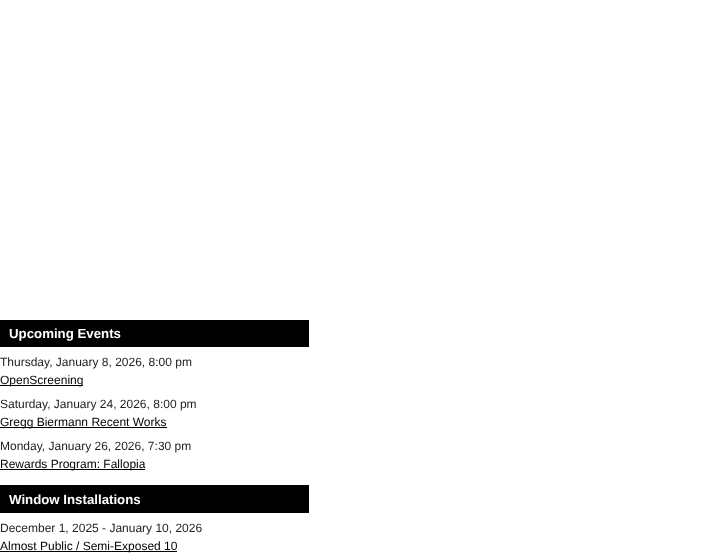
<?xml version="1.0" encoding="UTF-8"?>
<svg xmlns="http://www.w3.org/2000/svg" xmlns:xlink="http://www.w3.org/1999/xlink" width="708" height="560">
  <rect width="100%" height="100%" fill="#ffffff" />
  <rect y="320" width="309" height="27" fill="#000000" />
  <rect y="385" width="83" height="1" fill="#000000" />
  <rect y="427" width="167" height="1" fill="#000000" />
  <rect y="469" width="145" height="1" fill="#000000" />
  <rect y="485" width="309" height="28" fill="#000000" />
  <rect y="551" width="177" height="1" fill="#000000" />
  <text x="9" y="338" style="font-family: Liberation Sans; font-size: 13.25px; font-weight: bold; fill: #ffffff">Upcoming Events</text>
  <text x="0" y="366" style="font-family: Liberation Sans; font-size: 12px; fill: #222222">Thursday, January 8, 2026, 8:00 pm</text>
  <text x="0" y="384" style="font-family: Liberation Sans; font-size: 12px; fill: #000000">OpenScreening</text>
  <text x="0" y="408" style="font-family: Liberation Sans; font-size: 12px; fill: #222222">Saturday, January 24, 2026, 8:00 pm</text>
  <text x="0" y="426" style="font-family: Liberation Sans; font-size: 12px; fill: #000000">Gregg Biermann Recent Works</text>
  <text x="0" y="450" style="font-family: Liberation Sans; font-size: 12px; fill: #222222">Monday, January 26, 2026, 7:30 pm</text>
  <text x="0" y="468" style="font-family: Liberation Sans; font-size: 12px; fill: #000000">Rewards Program: Fallopia</text>
  <text x="9" y="504" style="font-family: Liberation Sans; font-size: 13.25px; font-weight: bold; fill: #ffffff">Window Installations</text>
  <text x="0" y="532" style="font-family: Liberation Sans; font-size: 12px; fill: #222222">December 1, 2025 - January 10, 2026</text>
  <text x="0" y="550" style="font-family: Liberation Sans; font-size: 12px; fill: #000000">Almost Public / Semi-Exposed 10</text>
</svg>
